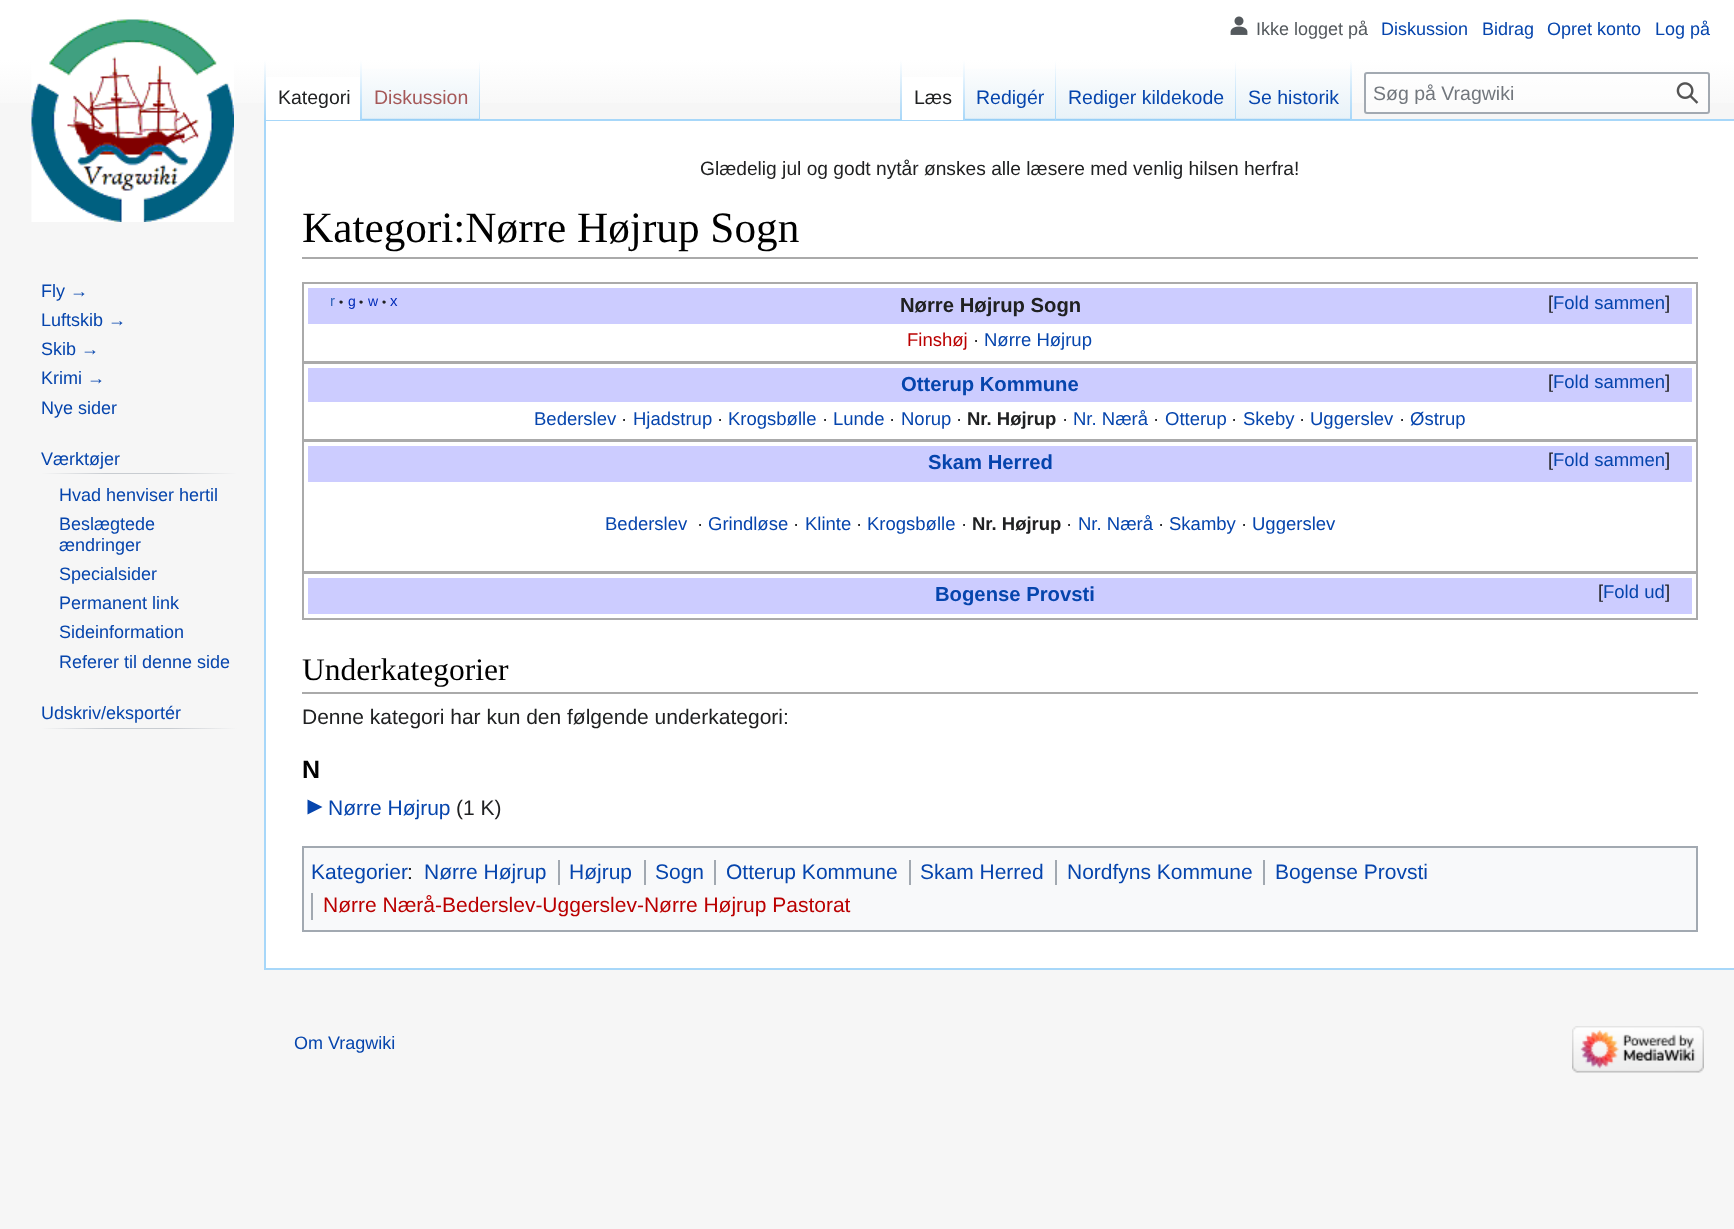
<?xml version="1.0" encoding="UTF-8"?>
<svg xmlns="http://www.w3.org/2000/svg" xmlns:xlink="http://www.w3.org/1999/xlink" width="1734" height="1229">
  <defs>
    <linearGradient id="g1" gradientUnits="userSpaceOnUse" x1="867" y1="0" x2="867" y2="120"><stop offset="0.5" stop-color="#ffffff" /><stop offset="1" stop-color="#f6f6f6" /></linearGradient>
    <linearGradient id="g2" gradientUnits="userSpaceOnUse" x1="265" y1="60" x2="265" y2="120"><stop offset="0" stop-color="#a7d7f9" stop-opacity="0" /><stop offset="1" stop-color="#a7d7f9" /></linearGradient>
    <linearGradient id="g3" gradientUnits="userSpaceOnUse" x1="361" y1="60" x2="361" y2="120"><stop offset="0" stop-color="#ffffff" /><stop offset="1" stop-color="#a7d7f9" /></linearGradient>
    <linearGradient id="g4" gradientUnits="userSpaceOnUse" x1="421" y1="120" x2="421" y2="60"><stop offset="0" stop-color="#77c1f6" /><stop offset="0.03" stop-color="#e8f2f8" /><stop offset="1" stop-color="#ffffff" /></linearGradient>
    <linearGradient id="g5" gradientUnits="userSpaceOnUse" x1="479" y1="60" x2="479" y2="120"><stop offset="0" stop-color="#a7d7f9" stop-opacity="0" /><stop offset="1" stop-color="#a7d7f9" /></linearGradient>
    <linearGradient id="g6" gradientUnits="userSpaceOnUse" x1="901" y1="60" x2="901" y2="120"><stop offset="0" stop-color="#a7d7f9" stop-opacity="0" /><stop offset="1" stop-color="#a7d7f9" /></linearGradient>
    <linearGradient id="g7" gradientUnits="userSpaceOnUse" x1="964" y1="60" x2="964" y2="120"><stop offset="0" stop-color="#ffffff" /><stop offset="1" stop-color="#a7d7f9" /></linearGradient>
    <linearGradient id="g8" gradientUnits="userSpaceOnUse" x1="1010" y1="120" x2="1010" y2="60"><stop offset="0" stop-color="#77c1f6" /><stop offset="0.03" stop-color="#e8f2f8" /><stop offset="1" stop-color="#ffffff" /></linearGradient>
    <linearGradient id="g9" gradientUnits="userSpaceOnUse" x1="1055" y1="60" x2="1055" y2="120"><stop offset="0" stop-color="#a7d7f9" stop-opacity="0" /><stop offset="1" stop-color="#a7d7f9" /></linearGradient>
    <linearGradient id="g10" gradientUnits="userSpaceOnUse" x1="1146" y1="120" x2="1146" y2="60"><stop offset="0" stop-color="#77c1f6" /><stop offset="0.03" stop-color="#e8f2f8" /><stop offset="1" stop-color="#ffffff" /></linearGradient>
    <linearGradient id="g11" gradientUnits="userSpaceOnUse" x1="1235" y1="60" x2="1235" y2="120"><stop offset="0" stop-color="#a7d7f9" stop-opacity="0" /><stop offset="1" stop-color="#a7d7f9" /></linearGradient>
    <linearGradient id="g12" gradientUnits="userSpaceOnUse" x1="1294" y1="120" x2="1294" y2="60"><stop offset="0" stop-color="#77c1f6" /><stop offset="0.03" stop-color="#e8f2f8" /><stop offset="1" stop-color="#ffffff" /></linearGradient>
    <linearGradient id="g13" gradientUnits="userSpaceOnUse" x1="1351" y1="60" x2="1351" y2="120"><stop offset="0" stop-color="#a7d7f9" stop-opacity="0" /><stop offset="1" stop-color="#a7d7f9" /></linearGradient>
    <linearGradient id="g14" gradientUnits="userSpaceOnUse" x1="41" y1="473" x2="237" y2="473"><stop offset="0" stop-color="#f6f6f6" /><stop offset="0.33" stop-color="#c8ccd1" /><stop offset="0.66" stop-color="#c8ccd1" /><stop offset="1" stop-color="#f6f6f6" /></linearGradient>
    <linearGradient id="g15" gradientUnits="userSpaceOnUse" x1="41" y1="728" x2="237" y2="728"><stop offset="0" stop-color="#f6f6f6" /><stop offset="0.33" stop-color="#c8ccd1" /><stop offset="0.66" stop-color="#c8ccd1" /><stop offset="1" stop-color="#f6f6f6" /></linearGradient>
  </defs>
  <rect width="100%" height="100%" fill="#f6f6f6" />
  <rect width="1734" height="103" fill="url(#g1)" />
  <image x="1230" y="16" width="18" height="19" xlink:href="image1.png" />
  <rect x="264" y="119" width="1470" height="2" fill="#a7d7f9" />
  <rect x="264" y="968" width="1470" height="2" fill="#a7d7f9" />
  <rect x="264" y="119" width="2" height="850" fill="#a7d7f9" />
  <rect x="264" y="60" width="2" height="60" fill="url(#g2)" />
  <rect x="266" y="77" width="94" height="43" fill="#ffffff" />
  <rect x="360" y="60" width="2" height="60" fill="url(#g3)" />
  <rect x="362" y="69" width="118" height="51" fill="url(#g4)" />
  <rect x="479" y="60" width="1" height="60" fill="url(#g5)" />
  <rect x="900" y="60" width="2" height="60" fill="url(#g6)" />
  <rect x="902" y="77" width="61" height="43" fill="#ffffff" />
  <rect x="963" y="60" width="2" height="60" fill="url(#g7)" />
  <rect x="965" y="69" width="91" height="51" fill="url(#g8)" />
  <rect x="1055" y="60" width="1" height="60" fill="url(#g9)" />
  <rect x="1056" y="69" width="180" height="51" fill="url(#g10)" />
  <rect x="1235" y="60" width="1" height="60" fill="url(#g11)" />
  <rect x="1236" y="69" width="116" height="51" fill="url(#g12)" />
  <rect x="1350" y="60" width="2" height="60" fill="url(#g13)" />
  <rect x="1365" y="73" width="344" height="40" rx="2" fill="#ffffff" fill-opacity="0.5" stroke="#a2a9b1" stroke-width="2" />
  <image x="1676" y="82" width="23" height="22" xlink:href="image2.png" />
  <image x="31" y="19" width="203" height="203" xlink:href="image3.png" />
  <rect x="41" y="473" width="196" height="1" fill="url(#g14)" />
  <rect x="41" y="728" width="196" height="1" fill="url(#g15)" />
  <rect x="266" y="121" width="1468" height="847" fill="#ffffff" />
  <rect x="302" y="257" width="1396" height="2" fill="#aaaaaa" />
  <rect x="303" y="283" width="1394" height="79" fill="none" stroke="#aaaaaa" stroke-width="2" />
  <rect x="308" y="288" width="1384" height="36" fill="#ccccff" />
  <rect x="303" y="363" width="1394" height="77" fill="none" stroke="#aaaaaa" stroke-width="2" />
  <rect x="308" y="368" width="1384" height="34" fill="#ccccff" />
  <rect x="303" y="441" width="1394" height="131" fill="none" stroke="#aaaaaa" stroke-width="2" />
  <rect x="308" y="446" width="1384" height="36" fill="#ccccff" />
  <rect x="303" y="573" width="1394" height="46" fill="none" stroke="#aaaaaa" stroke-width="2" />
  <rect x="308" y="578" width="1384" height="36" fill="#ccccff" />
  <rect x="302" y="692" width="1396" height="2" fill="#aaaaaa" />
  <path d="M 307.5 814.5 v -15 l 15 7.5 z" fill="#0645ad" />
  <rect x="303" y="847" width="1394" height="84" fill="#f8f9fa" stroke="#a2a9b1" stroke-width="2" />
  <rect x="558" y="860" width="2" height="25" fill="#a2a9b1" />
  <rect x="644" y="860" width="2" height="25" fill="#a2a9b1" />
  <rect x="714" y="860" width="2" height="25" fill="#a2a9b1" />
  <rect x="909" y="860" width="2" height="25" fill="#a2a9b1" />
  <rect x="1055" y="860" width="2" height="25" fill="#a2a9b1" />
  <rect x="1263" y="860" width="2" height="25" fill="#a2a9b1" />
  <rect x="311" y="893" width="2" height="27" fill="#a2a9b1" />
  <image x="1572" y="1026" width="132" height="47" xlink:href="image4.png" />
  <text x="1256" y="35" style="font-family: Liberation Sans; font-size: 18px; fill: #54595d">Ikke logget på</text>
  <text x="1381" y="35" style="font-family: Liberation Sans; font-size: 18px; fill: #0645ad">Diskussion</text>
  <text x="1482" y="35" style="font-family: Liberation Sans; font-size: 18px; fill: #0645ad">Bidrag</text>
  <text x="1547" y="35" style="font-family: Liberation Sans; font-size: 18px; fill: #0645ad">Opret konto</text>
  <text x="1655" y="35" style="font-family: Liberation Sans; font-size: 18px; fill: #0645ad">Log på</text>
  <text x="278" y="104" style="font-family: Liberation Sans; font-size: 19.5px; fill: #202122">Kategori</text>
  <text x="374" y="104" style="font-family: Liberation Sans; font-size: 19.5px; fill: #a55858">Diskussion</text>
  <text x="914" y="104" style="font-family: Liberation Sans; font-size: 19.5px; fill: #202122">Læs</text>
  <text x="976" y="104" style="font-family: Liberation Sans; font-size: 19.5px; fill: #0645ad">Redigér</text>
  <text x="1068" y="104" style="font-family: Liberation Sans; font-size: 19.5px; fill: #0645ad">Rediger kildekode</text>
  <text x="1248" y="104" style="font-family: Liberation Sans; font-size: 19.5px; fill: #0645ad">Se historik</text>
  <text x="1373" y="100" style="font-family: Liberation Sans; font-size: 19.5px; fill: #72777d">Søg på Vragwiki</text>
  <text x="41" y="297" style="font-family: Liberation Sans; font-size: 18px; fill: #0645ad">Fly →</text>
  <text x="41" y="326" style="font-family: Liberation Sans; font-size: 18px; fill: #0645ad">Luftskib →</text>
  <text x="41" y="355" style="font-family: Liberation Sans; font-size: 18px; fill: #0645ad">Skib →</text>
  <text x="41" y="384" style="font-family: Liberation Sans; font-size: 18px; fill: #0645ad">Krimi →</text>
  <text x="41" y="414" style="font-family: Liberation Sans; font-size: 18px; fill: #0645ad">Nye sider</text>
  <text x="41" y="465" style="font-family: Liberation Sans; font-size: 18px; fill: #0645ad">Værktøjer</text>
  <text x="59" y="501" style="font-family: Liberation Sans; font-size: 18px; fill: #0645ad">Hvad henviser hertil</text>
  <text x="59" y="530" style="font-family: Liberation Sans; font-size: 18px; fill: #0645ad">Beslægtede</text>
  <text x="59" y="551" style="font-family: Liberation Sans; font-size: 18px; fill: #0645ad">ændringer</text>
  <text x="59" y="580" style="font-family: Liberation Sans; font-size: 18px; fill: #0645ad">Specialsider</text>
  <text x="59" y="609" style="font-family: Liberation Sans; font-size: 18px; fill: #0645ad">Permanent link</text>
  <text x="59" y="638" style="font-family: Liberation Sans; font-size: 18px; fill: #0645ad">Sideinformation</text>
  <text x="59" y="668" style="font-family: Liberation Sans; font-size: 18px; fill: #0645ad">Referer til denne side</text>
  <text x="41" y="719" style="font-family: Liberation Sans; font-size: 18px; fill: #0645ad">Udskriv/eksportér</text>
  <text x="700" y="175" style="font-family: Liberation Sans; font-size: 19.2px; fill: #202122">Glædelig jul og godt nytår ønskes alle læsere med venlig hilsen herfra!</text>
  <text x="302" y="242" style="font-family: Liberation Serif; font-size: 43.25px; fill: #000000">Kategori:Nørre Højrup Sogn</text>
  <text x="330" y="306" style="font-family: Liberation Sans; font-size: 15px; fill: #3366bb">r</text>
  <text x="339" y="306" style="font-family: Liberation Sans; font-size: 12px; fill: #202122">•</text>
  <text x="348" y="306" style="font-family: Liberation Sans; font-size: 14px; fill: #002bb8">g</text>
  <text x="359" y="306" style="font-family: Liberation Sans; font-size: 12px; fill: #202122">•</text>
  <text x="368" y="306" style="font-family: Liberation Sans; font-size: 14px; fill: #002bb8">w</text>
  <text x="382" y="306" style="font-family: Liberation Sans; font-size: 12px; fill: #202122">•</text>
  <text x="390" y="306" style="font-family: Liberation Sans; font-size: 15px; fill: #002bb8">x</text>
  <text x="900" y="312" style="font-family: Liberation Sans; font-size: 20.25px; font-weight: bold; fill: #202122">Nørre Højrup Sogn</text>
  <text x="1548" y="309" style="font-family: Liberation Sans; font-size: 18.5px; fill: #202122">[</text>
  <text x="1553" y="309" style="font-family: Liberation Sans; font-size: 18.5px; fill: #0645ad">Fold sammen</text>
  <text x="1665" y="309" style="font-family: Liberation Sans; font-size: 18.5px; fill: #202122">]</text>
  <text x="907" y="346" style="font-family: Liberation Sans; font-size: 18.5px; fill: #ba0000">Finshøj</text>
  <text x="973" y="346" style="font-family: Liberation Sans; font-size: 18.5px; fill: #202122">·</text>
  <text x="984" y="346" style="font-family: Liberation Sans; font-size: 18.5px; fill: #0645ad">Nørre Højrup</text>
  <text x="901" y="391" style="font-family: Liberation Sans; font-size: 20.25px; font-weight: bold; fill: #0645ad">Otterup Kommune</text>
  <text x="1548" y="388" style="font-family: Liberation Sans; font-size: 18.5px; fill: #202122">[</text>
  <text x="1553" y="388" style="font-family: Liberation Sans; font-size: 18.5px; fill: #0645ad">Fold sammen</text>
  <text x="1665" y="388" style="font-family: Liberation Sans; font-size: 18.5px; fill: #202122">]</text>
  <text x="534" y="425" style="font-family: Liberation Sans; font-size: 18.5px; fill: #0645ad">Bederslev</text>
  <text x="621" y="425" style="font-family: Liberation Sans; font-size: 18.5px; fill: #202122">·</text>
  <text x="633" y="425" style="font-family: Liberation Sans; font-size: 18.5px; fill: #0645ad">Hjadstrup</text>
  <text x="717" y="425" style="font-family: Liberation Sans; font-size: 18.5px; fill: #202122">·</text>
  <text x="728" y="425" style="font-family: Liberation Sans; font-size: 18.5px; fill: #0645ad">Krogsbølle</text>
  <text x="822" y="425" style="font-family: Liberation Sans; font-size: 18.5px; fill: #202122">·</text>
  <text x="833" y="425" style="font-family: Liberation Sans; font-size: 18.5px; fill: #0645ad">Lunde</text>
  <text x="889" y="425" style="font-family: Liberation Sans; font-size: 18.5px; fill: #202122">·</text>
  <text x="901" y="425" style="font-family: Liberation Sans; font-size: 18.5px; fill: #0645ad">Norup</text>
  <text x="956" y="425" style="font-family: Liberation Sans; font-size: 18.5px; fill: #202122">·</text>
  <text x="967" y="425" style="font-family: Liberation Sans; font-size: 18.5px; font-weight: bold; fill: #202122">Nr. Højrup</text>
  <text x="1062" y="425" style="font-family: Liberation Sans; font-size: 18.5px; fill: #202122">·</text>
  <text x="1073" y="425" style="font-family: Liberation Sans; font-size: 18.5px; fill: #0645ad">Nr. Nærå</text>
  <text x="1153" y="425" style="font-family: Liberation Sans; font-size: 18.5px; fill: #202122">·</text>
  <text x="1165" y="425" style="font-family: Liberation Sans; font-size: 18.5px; fill: #0645ad">Otterup</text>
  <text x="1231" y="425" style="font-family: Liberation Sans; font-size: 18.5px; fill: #202122">·</text>
  <text x="1243" y="425" style="font-family: Liberation Sans; font-size: 18.5px; fill: #0645ad">Skeby</text>
  <text x="1299" y="425" style="font-family: Liberation Sans; font-size: 18.5px; fill: #202122">·</text>
  <text x="1310" y="425" style="font-family: Liberation Sans; font-size: 18.5px; fill: #0645ad">Uggerslev</text>
  <text x="1399" y="425" style="font-family: Liberation Sans; font-size: 18.5px; fill: #202122">·</text>
  <text x="1410" y="425" style="font-family: Liberation Sans; font-size: 18.5px; fill: #0645ad">Østrup</text>
  <text x="928" y="469" style="font-family: Liberation Sans; font-size: 20.25px; font-weight: bold; fill: #0645ad">Skam Herred</text>
  <text x="1548" y="466" style="font-family: Liberation Sans; font-size: 18.5px; fill: #202122">[</text>
  <text x="1553" y="466" style="font-family: Liberation Sans; font-size: 18.5px; fill: #0645ad">Fold sammen</text>
  <text x="1665" y="466" style="font-family: Liberation Sans; font-size: 18.5px; fill: #202122">]</text>
  <text x="605" y="530" style="font-family: Liberation Sans; font-size: 18.5px; fill: #0645ad">Bederslev</text>
  <text x="697" y="530" style="font-family: Liberation Sans; font-size: 18.5px; fill: #202122">·</text>
  <text x="708" y="530" style="font-family: Liberation Sans; font-size: 18.5px; fill: #0645ad">Grindløse</text>
  <text x="793" y="530" style="font-family: Liberation Sans; font-size: 18.5px; fill: #202122">·</text>
  <text x="805" y="530" style="font-family: Liberation Sans; font-size: 18.5px; fill: #0645ad">Klinte</text>
  <text x="856" y="530" style="font-family: Liberation Sans; font-size: 18.5px; fill: #202122">·</text>
  <text x="867" y="530" style="font-family: Liberation Sans; font-size: 18.5px; fill: #0645ad">Krogsbølle</text>
  <text x="961" y="530" style="font-family: Liberation Sans; font-size: 18.5px; fill: #202122">·</text>
  <text x="972" y="530" style="font-family: Liberation Sans; font-size: 18.5px; font-weight: bold; fill: #202122">Nr. Højrup</text>
  <text x="1066" y="530" style="font-family: Liberation Sans; font-size: 18.5px; fill: #202122">·</text>
  <text x="1078" y="530" style="font-family: Liberation Sans; font-size: 18.5px; fill: #0645ad">Nr. Nærå</text>
  <text x="1158" y="530" style="font-family: Liberation Sans; font-size: 18.5px; fill: #202122">·</text>
  <text x="1169" y="530" style="font-family: Liberation Sans; font-size: 18.5px; fill: #0645ad">Skamby</text>
  <text x="1241" y="530" style="font-family: Liberation Sans; font-size: 18.5px; fill: #202122">·</text>
  <text x="1252" y="530" style="font-family: Liberation Sans; font-size: 18.5px; fill: #0645ad">Uggerslev</text>
  <text x="935" y="601" style="font-family: Liberation Sans; font-size: 20.25px; font-weight: bold; fill: #0645ad">Bogense Provsti</text>
  <text x="1598" y="598" style="font-family: Liberation Sans; font-size: 18.5px; fill: #202122">[</text>
  <text x="1603" y="598" style="font-family: Liberation Sans; font-size: 18.5px; fill: #0645ad">Fold ud</text>
  <text x="1665" y="598" style="font-family: Liberation Sans; font-size: 18.5px; fill: #202122">]</text>
  <text x="302" y="680" style="font-family: Liberation Serif; font-size: 31.5px; fill: #000000">Underkategorier</text>
  <text x="302" y="724" style="font-family: Liberation Sans; font-size: 21px; fill: #202122">Denne kategori har kun den følgende underkategori:</text>
  <text x="302" y="778" style="font-family: Liberation Sans; font-size: 25px; font-weight: bold; fill: #000000">N</text>
  <text x="328" y="815" style="font-family: Liberation Sans; font-size: 21px; fill: #0645ad">Nørre Højrup</text>
  <text x="456" y="815" style="font-family: Liberation Sans; font-size: 21px; fill: #202122">(1 K)</text>
  <text x="311" y="879" style="font-family: Liberation Sans; font-size: 21px; fill: #0645ad">Kategorier</text>
  <text x="424" y="879" style="font-family: Liberation Sans; font-size: 21px; fill: #0645ad">Nørre Højrup</text>
  <text x="569" y="879" style="font-family: Liberation Sans; font-size: 21px; fill: #0645ad">Højrup</text>
  <text x="655" y="879" style="font-family: Liberation Sans; font-size: 21px; fill: #0645ad">Sogn</text>
  <text x="726" y="879" style="font-family: Liberation Sans; font-size: 21px; fill: #0645ad">Otterup Kommune</text>
  <text x="920" y="879" style="font-family: Liberation Sans; font-size: 21px; fill: #0645ad">Skam Herred</text>
  <text x="1067" y="879" style="font-family: Liberation Sans; font-size: 21px; fill: #0645ad">Nordfyns Kommune</text>
  <text x="1275" y="879" style="font-family: Liberation Sans; font-size: 21px; fill: #0645ad">Bogense Provsti</text>
  <text x="323" y="912" style="font-family: Liberation Sans; font-size: 21px; fill: #ba0000">Nørre Nærå-Bederslev-Uggerslev-Nørre Højrup Pastorat</text>
  <text x="407" y="879" style="font-family: Liberation Sans; font-size: 21px; fill: #202122">:</text>
  <text x="294" y="1049" style="font-family: Liberation Sans; font-size: 18px; fill: #0645ad">Om Vragwiki</text>
</svg>
